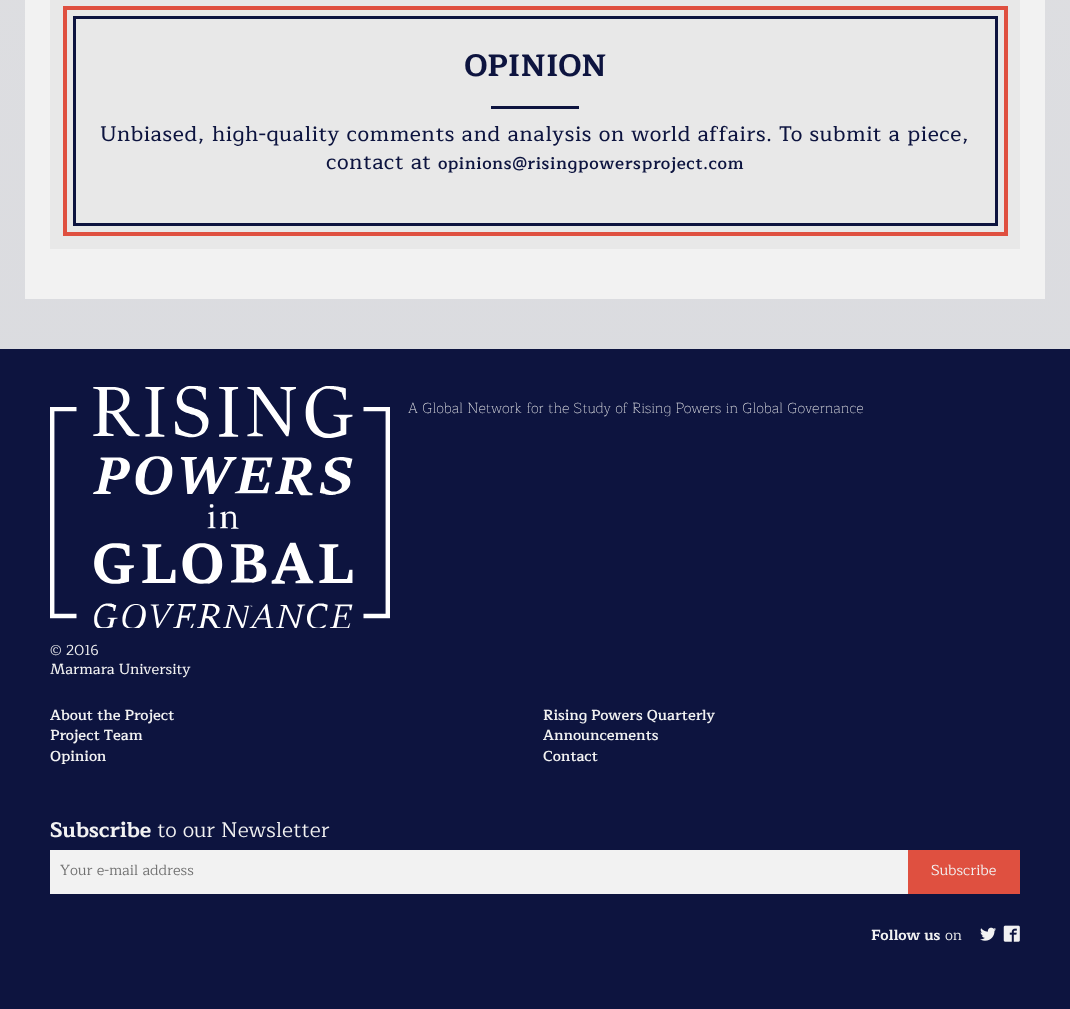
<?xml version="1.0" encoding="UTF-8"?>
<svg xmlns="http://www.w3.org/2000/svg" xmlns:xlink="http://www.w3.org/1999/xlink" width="1070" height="1009">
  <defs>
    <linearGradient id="g1" gradientUnits="userSpaceOnUse" x1="535" y1="-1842" x2="535" y2="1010"><stop offset="0" stop-color="#e8e8e8" /><stop offset="1" stop-color="#d7d8dd" /></linearGradient>
  </defs>
  <rect width="100%" height="100%" fill="#ffffff" />
  <rect width="1070" height="349" fill="url(#g1)" />
  <rect x="25" width="1020" height="299" fill="#f2f2f2" />
  <rect x="50" width="970" height="249" fill="#e8e8e8" />
  <rect x="65" y="8" width="941" height="226" fill="none" stroke="#df5040" stroke-width="4" />
  <rect x="74.5" y="17.5" width="922" height="207" fill="none" stroke="#0d143f" stroke-width="3" />
  <rect x="491" y="106" width="88" height="3" fill="#0d143f" />
  <rect y="349" width="1070" height="660" fill="#0d143f" />
  <image x="50" y="386" width="340" height="242" xlink:href="image1.png" />
  <rect x="50" y="850" width="858" height="44" fill="#f2f2f2" />
  <rect x="908" y="850" width="112" height="44" fill="#df5040" />
  <image x="980" y="927" width="16" height="14" xlink:href="image2.png" />
  <image x="1003" y="925" width="17" height="17" xlink:href="image3.png" />
  <text x="464" y="76" style="font-family: Maitree; font-size: 31px; font-weight: bold; fill: #0d143f">OPINION</text>
  <text x="100" y="141" style="font-family: Maitree; font-size: 21.1px; font-weight: 500; letter-spacing: 0.63px; fill: #0d143f">Unbiased, high-quality comments and analysis on world affairs. To submit a piece,</text>
  <text x="326" y="169" style="font-family: Maitree; font-size: 21.1px; font-weight: 500; letter-spacing: 0.63px; fill: #0d143f">contact at</text>
  <text x="438" y="169" style="font-family: Maitree; font-size: 16.9px; font-weight: 600; letter-spacing: 0.63px; fill: #0d143f">opinions@risingpowersproject.com</text>
  <text x="408" y="413" style="font-family: Maitree; font-size: 14.6px; font-weight: 200; fill: #f2f2f2">A Global Network for the Study of Rising Powers in Global Governance</text>
  <text x="50" y="655" style="font-family: Maitree; font-size: 14.6px; fill: #f2f2f2">© 2016</text>
  <text x="50" y="674" style="font-family: Maitree; font-size: 14.6px; font-weight: 500; fill: #f2f2f2">Marmara University</text>
  <text x="50" y="720" style="font-family: Maitree; font-size: 14.6px; font-weight: 600; fill: #f2f2f2">About the Project</text>
  <text x="543" y="720" style="font-family: Maitree; font-size: 14.6px; font-weight: 600; fill: #f2f2f2">Rising Powers Quarterly</text>
  <text x="50" y="740" style="font-family: Maitree; font-size: 14.6px; font-weight: 600; fill: #f2f2f2">Project Team</text>
  <text x="543" y="740" style="font-family: Maitree; font-size: 14.6px; font-weight: 600; fill: #f2f2f2">Announcements</text>
  <text x="50" y="761" style="font-family: Maitree; font-size: 14.6px; font-weight: 600; fill: #f2f2f2">Opinion</text>
  <text x="543" y="761" style="font-family: Maitree; font-size: 14.6px; font-weight: 600; fill: #f2f2f2">Contact</text>
  <text x="50" y="837" style="font-family: Maitree; font-size: 21.1px; font-weight: bold; fill: #f2f2f2">Subscribe</text>
  <text x="157" y="837" style="font-family: Maitree; font-size: 21.1px; fill: #f2f2f2">to our Newsletter</text>
  <text x="60" y="875" style="font-family: Maitree; font-size: 14.6px; fill: #6f6f6f">Your e-mail address</text>
  <text x="931" y="875" style="font-family: Maitree; font-size: 14.6px; fill: #f2f2f2">Subscribe</text>
  <text x="871" y="940" style="font-family: Maitree; font-size: 14.6px; font-weight: bold; fill: #f2f2f2">Follow us</text>
  <text x="945" y="940" style="font-family: Maitree; font-size: 14.6px; fill: #f2f2f2">on</text>
</svg>
